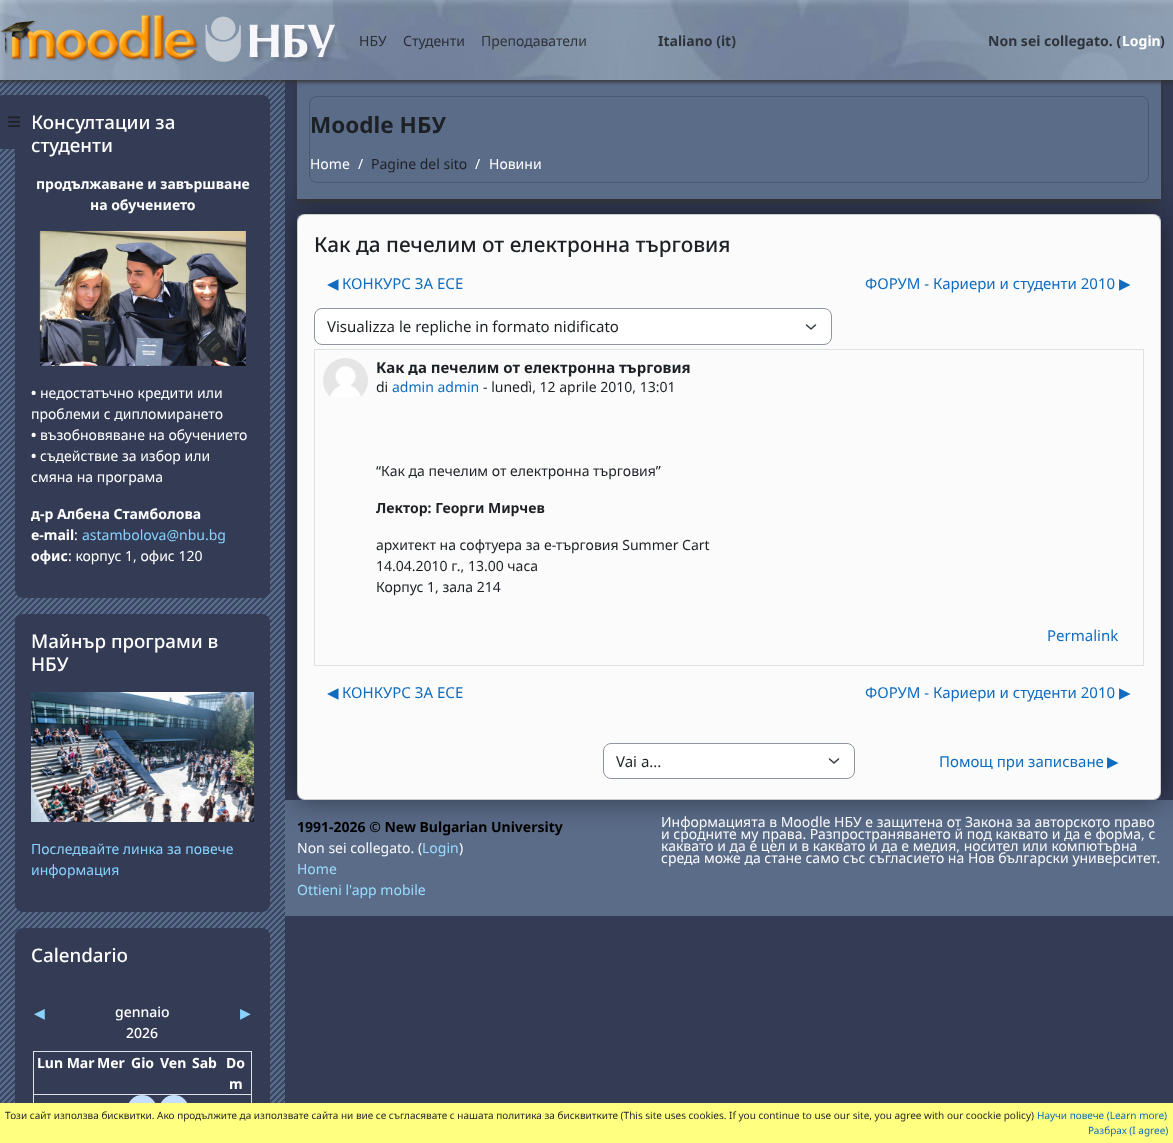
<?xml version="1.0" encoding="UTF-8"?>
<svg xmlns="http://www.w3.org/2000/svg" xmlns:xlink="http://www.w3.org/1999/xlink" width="1173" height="1143">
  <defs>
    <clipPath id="clip1"><path d="M 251 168 h 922 v 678 h -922 z m 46 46 h 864 v 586 h -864 z" clip-rule="evenodd" /></clipPath>
  </defs>
  <rect width="100%" height="100%" fill="#333b55" />
  <rect x="285" y="800" width="888" height="116" fill="#5b6c89" />
  <g clip-path="url(#clip1)">
    <rect x="297" y="214" width="864" height="586" fill="#000000" fill-opacity="0.5" filter="blur(15px)" />
  </g>
  <image x="0" y="80" width="285" height="1023" xlink:href="image4.png" />
  <rect x="297" y="83" width="864" height="119" fill="#333333" filter="blur(2.5px)" />
  <rect x="297" y="80" width="864" height="119" fill="#5b6c89" />
  <rect y="2" width="1173" height="80" fill="#333333" filter="blur(2px)" />
  <image x="0" y="0" width="1173" height="80" xlink:href="image1.png" />
  <image x="0" y="15" width="335" height="47" xlink:href="image2.png" />
  <rect x="15" y="95" width="255" height="503" rx="8" fill="#333b55" />
  <image x="39" y="231" width="207" height="135" xlink:href="image5.png" />
  <rect x="15" y="614" width="255" height="298" rx="8" fill="#333b55" />
  <image x="31" y="692" width="223" height="130" xlink:href="image6.png" />
  <path d="M 23 928 h 239 c 4.5 0 8 3.5 8 8 v 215 h -255 v -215 c 0 -4.5 3.5 -8 8 -8 z" fill="#333b55" />
  <rect x="33" y="1051" width="219" height="1" fill="#dee2e6" />
  <rect x="33" y="1094" width="219" height="1" fill="#dee2e6" />
  <rect x="251" y="1094" width="1" height="9" fill="#dee2e6" />
  <rect x="251" y="1051" width="1" height="44" fill="#dee2e6" />
  <rect x="33" y="1094" width="1" height="9" fill="#dee2e6" />
  <rect x="33" y="1051" width="1" height="44" fill="#dee2e6" />
  <circle cx="142" cy="1110" r="15" fill="#c5defd" />
  <circle cx="174" cy="1110" r="15" fill="#c5defd" />
  <rect x="309.5" y="96.5" width="839" height="86" rx="7.5" fill="none" stroke="#4b5971" />
  <rect x="297" y="214" width="864" height="586" rx="8" fill="#fbfbfc" />
  <rect x="297.5" y="214.5" width="863" height="585" rx="7.5" fill="none" stroke="#000000" stroke-opacity="0.18" />
  <rect x="314" y="308" width="518" height="37" rx="8" fill="#ffffff" />
  <path d="M 806.5 325 l 4.5 4 l 4.5 -4" fill="none" stroke="#343a40" stroke-width="1.5" stroke-linecap="round" stroke-linejoin="round" />
  <rect x="314.5" y="308.5" width="517" height="36" rx="7.5" fill="none" stroke="#8f959e" />
  <rect x="314.5" y="349.5" width="829" height="316" fill="none" stroke="#dee2e6" />
  <image x="323" y="358" width="45" height="39" xlink:href="image7.png" />
  <rect x="603" y="743" width="252" height="36" rx="8" fill="#ffffff" />
  <path d="M 829.5 759 l 4.5 4 l 4.5 -4" fill="none" stroke="#343a40" stroke-width="1.5" stroke-linecap="round" stroke-linejoin="round" />
  <rect x="603.5" y="743.5" width="251" height="35" rx="7.5" fill="none" stroke="#8f959e" />
  <rect y="1103" width="1173" height="40" fill="#ffff80" />
  <text x="359" y="46" style="font-family: Noto Sans; font-size: 14px; fill: #292e37">НБУ</text>
  <text x="403" y="46" style="font-family: Noto Sans; font-size: 14px; fill: #292e37">Студенти</text>
  <text x="481" y="46" style="font-family: Noto Sans; font-size: 14px; fill: #2f343b">Преподаватели</text>
  <text x="658" y="46" style="font-family: Noto Sans; font-size: 14px; font-weight: bold; fill: #2f343b">Italiano (it)</text>
  <text x="988" y="46" style="font-family: Noto Sans; font-size: 14px; font-weight: bold; fill: #2f343b">Non sei collegato. (</text>
  <text x="1122" y="46" style="font-family: Noto Sans; font-size: 14px; font-weight: bold; fill: #ffffff">Login</text>
  <text x="1160" y="46" style="font-family: Noto Sans; font-size: 14px; font-weight: bold; fill: #2f343b">)</text>
  <text x="31" y="129" style="font-family: Noto Sans; font-size: 18.75px; font-weight: 500; fill: #ffffff">Консултации за</text>
  <text x="31" y="152" style="font-family: Noto Sans; font-size: 18.75px; font-weight: 500; fill: #ffffff">студенти</text>
  <rect x="-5" y="95" width="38" height="54" rx="8" fill="#333b55" />
  <image x="8" y="116" width="13" height="11" xlink:href="image3.png" />
  <text x="36" y="189" style="font-family: Noto Sans; font-size: 14px; font-weight: bold; fill: #ffffff">продължаване и завършване</text>
  <text x="90" y="210" style="font-family: Noto Sans; font-size: 14px; font-weight: bold; fill: #ffffff">на обучението</text>
  <text x="31" y="398" style="font-family: Noto Sans; font-size: 14px; font-weight: bold; fill: #ffffff">•</text>
  <text x="40" y="398" style="font-family: Noto Sans; font-size: 14px; fill: #ffffff">недостатъчно кредити или</text>
  <text x="31" y="419" style="font-family: Noto Sans; font-size: 14px; fill: #ffffff">проблеми с дипломирането</text>
  <text x="31" y="440" style="font-family: Noto Sans; font-size: 14px; font-weight: bold; fill: #ffffff">•</text>
  <text x="40" y="440" style="font-family: Noto Sans; font-size: 14px; fill: #ffffff">възобновяване на обучението</text>
  <text x="31" y="461" style="font-family: Noto Sans; font-size: 14px; font-weight: bold; fill: #ffffff">•</text>
  <text x="40" y="461" style="font-family: Noto Sans; font-size: 14px; fill: #ffffff">съдействие за избор или</text>
  <text x="31" y="482" style="font-family: Noto Sans; font-size: 14px; fill: #ffffff">смяна на програма</text>
  <text x="31" y="519" style="font-family: Noto Sans; font-size: 14px; font-weight: bold; fill: #ffffff">д-р Албена Стамболова</text>
  <text x="31" y="540" style="font-family: Noto Sans; font-size: 14px; font-weight: bold; fill: #ffffff">e-mail</text>
  <text x="74" y="540" style="font-family: Noto Sans; font-size: 14px; fill: #ffffff">:</text>
  <text x="82" y="540" style="font-family: Noto Sans; font-size: 14px; fill: #88d2ff">astambolova@nbu.bg</text>
  <text x="31" y="561" style="font-family: Noto Sans; font-size: 14px; font-weight: bold; fill: #ffffff">офис</text>
  <text x="68" y="561" style="font-family: Noto Sans; font-size: 14px; fill: #ffffff">: корпус 1, офис 120</text>
  <text x="31" y="648" style="font-family: Noto Sans; font-size: 18.75px; font-weight: 500; fill: #ffffff">Майнър програми в</text>
  <text x="31" y="671" style="font-family: Noto Sans; font-size: 18.75px; font-weight: 500; fill: #ffffff">НБУ</text>
  <text x="31" y="854" style="font-family: Noto Sans; font-size: 14px; fill: #88d2ff">Последвайте линка за повече</text>
  <text x="31" y="875" style="font-family: Noto Sans; font-size: 14px; fill: #88d2ff">информация</text>
  <text x="31" y="962" style="font-family: Noto Sans; font-size: 18.75px; font-weight: 500; fill: #ffffff">Calendario</text>
  <text x="34" y="1018" style="font-family: DejaVu Sans; font-size: 14px; fill: #88d2ff">◀︎</text>
  <text x="115" y="1017" style="font-family: Noto Sans; font-size: 14px; font-weight: 500; fill: #ffffff">gennaio</text>
  <text x="126" y="1038" style="font-family: Noto Sans; font-size: 14px; font-weight: 500; fill: #ffffff">2026</text>
  <text x="240" y="1018" style="font-family: DejaVu Sans; font-size: 14px; fill: #88d2ff">▶︎</text>
  <text x="37" y="1068" style="font-family: Noto Sans; font-size: 14px; font-weight: bold; fill: #ffffff">Lun Mar</text>
  <text x="97" y="1068" style="font-family: Noto Sans; font-size: 14px; font-weight: bold; fill: #ffffff">Mer</text>
  <text x="131" y="1068" style="font-family: Noto Sans; font-size: 14px; font-weight: bold; fill: #ffffff">Gio</text>
  <text x="160" y="1068" style="font-family: Noto Sans; font-size: 14px; font-weight: bold; fill: #ffffff">Ven</text>
  <text x="192" y="1068" style="font-family: Noto Sans; font-size: 14px; font-weight: bold; fill: #ffffff">Sab</text>
  <text x="226" y="1068" style="font-family: Noto Sans; font-size: 14px; font-weight: bold; fill: #ffffff">Do</text>
  <text x="229" y="1089" style="font-family: Noto Sans; font-size: 14px; font-weight: bold; fill: #ffffff">m</text>
  <text x="310" y="133" style="font-family: Noto Sans; font-size: 22.5px; font-weight: bold; fill: #1d2125">Moodle НБУ</text>
  <text x="310" y="169" style="font-family: Noto Sans; font-size: 14px; fill: #ffffff">Home</text>
  <text x="358" y="169" style="font-family: Noto Sans; font-size: 14px; fill: #ffffff">/</text>
  <text x="371" y="169" style="font-family: Noto Sans; font-size: 14px; fill: #1d2125">Pagine del sito</text>
  <text x="475" y="169" style="font-family: Noto Sans; font-size: 14px; fill: #ffffff">/</text>
  <text x="489" y="169" style="font-family: Noto Sans; font-size: 14px; fill: #ffffff">Новини</text>
  <text x="314" y="252" style="font-family: Noto Sans; font-size: 20.8px; font-weight: 500; fill: #1d2125">Как да печелим от електронна търговия</text>
  <text x="327" y="289" style="font-family: DejaVu Sans; font-size: 15px; fill: #0f6cbf">◀︎</text>
  <text x="342" y="289" style="font-family: Noto Sans; font-size: 15px; fill: #0f6cbf">КОНКУРС ЗА ЕСЕ</text>
  <text x="865" y="289" style="font-family: Noto Sans; font-size: 15px; fill: #0f6cbf">ФОРУМ - Кариери и студенти 2010</text>
  <text x="1119" y="289" style="font-family: DejaVu Sans; font-size: 15px; fill: #0f6cbf">▶︎</text>
  <text x="327" y="332" style="font-family: Noto Sans; font-size: 15px; fill: #1d2125">Visualizza le repliche in formato nidificato</text>
  <text x="376" y="373" style="font-family: Noto Sans; font-size: 15px; font-weight: bold; fill: #1d2125">Как да печелим от електронна търговия</text>
  <text x="376" y="392" style="font-family: Noto Sans; font-size: 14px; fill: #1d2125">di</text>
  <text x="392" y="392" style="font-family: Noto Sans; font-size: 14px; fill: #0f6cbf">admin admin</text>
  <text x="483" y="392" style="font-family: Noto Sans; font-size: 14px; fill: #1d2125">- lunedì, 12 aprile 2010, 13:01</text>
  <text x="376" y="476" style="font-family: Noto Sans; font-size: 14px; fill: #1d2125">“Как да печелим от електронна търговия”</text>
  <text x="376" y="513" style="font-family: Noto Sans; font-size: 14px; font-weight: bold; fill: #1d2125">Лектор: Георги Мирчев</text>
  <text x="376" y="550" style="font-family: Noto Sans; font-size: 14px; fill: #1d2125">архитект на софтуера за е-търговия Summer Cart</text>
  <text x="376" y="571" style="font-family: Noto Sans; font-size: 14px; fill: #1d2125">14.04.2010 г., 13.00 часа</text>
  <text x="376" y="592" style="font-family: Noto Sans; font-size: 14px; fill: #1d2125">Корпус 1, зала 214</text>
  <text x="1047" y="641" style="font-family: Noto Sans; font-size: 15px; fill: #0f6cbf">Permalink</text>
  <text x="327" y="698" style="font-family: DejaVu Sans; font-size: 15px; fill: #0f6cbf">◀︎</text>
  <text x="342" y="698" style="font-family: Noto Sans; font-size: 15px; fill: #0f6cbf">КОНКУРС ЗА ЕСЕ</text>
  <text x="865" y="698" style="font-family: Noto Sans; font-size: 15px; fill: #0f6cbf">ФОРУМ - Кариери и студенти 2010</text>
  <text x="1119" y="698" style="font-family: DejaVu Sans; font-size: 15px; fill: #0f6cbf">▶︎</text>
  <text x="616" y="767" style="font-family: Noto Sans; font-size: 15px; fill: #1d2125">Vai a...</text>
  <text x="939" y="767" style="font-family: Noto Sans; font-size: 15px; fill: #0f6cbf">Помощ при записване</text>
  <text x="1107" y="767" style="font-family: DejaVu Sans; font-size: 15px; fill: #0f6cbf">▶︎</text>
  <text x="297" y="832" style="font-family: Noto Sans; font-size: 14px; font-weight: bold; fill: #000000">1991-2026 © New Bulgarian University</text>
  <text x="661" y="827" style="font-family: Noto Sans; font-size: 14px; fill: #f8f9fa">Информацията в Moodle НБУ е защитена от Закона за авторското право</text>
  <text x="661" y="839" style="font-family: Noto Sans; font-size: 14px; fill: #f8f9fa">и сродните му права. Разпространяването й под каквато и да е форма, с</text>
  <text x="661" y="851" style="font-family: Noto Sans; font-size: 14px; fill: #f8f9fa">каквато и да е цел и в каквато и да е медия, носител или компютърна</text>
  <text x="661" y="863" style="font-family: Noto Sans; font-size: 14px; fill: #f8f9fa">среда може да стане само със съгласието на Нов български университет.</text>
  <text x="297" y="853" style="font-family: Noto Sans; font-size: 14px; fill: #f8f9fa">Non sei collegato. (</text>
  <text x="422" y="853" style="font-family: Noto Sans; font-size: 14px; fill: #99ddff">Login</text>
  <text x="459" y="853" style="font-family: Noto Sans; font-size: 14px; fill: #f8f9fa">)</text>
  <text x="297" y="874" style="font-family: Noto Sans; font-size: 14px; fill: #99ddff">Home</text>
  <text x="297" y="895" style="font-family: Noto Sans; font-size: 14px; fill: #99ddff">Ottieni l'app mobile</text>
  <text x="5" y="1119" style="font-family: Noto Sans; font-size: 10px; fill: #1d2125">Този сайт използва бисквитки. Ако продължите да използвате сайта ни вие се съгласявате с нашата политика за бисквитките (This site uses cookies. If you continue to use our site, you agree with our coockie policy)</text>
  <text x="1037" y="1119" style="font-family: Noto Sans; font-size: 10px; fill: #0f6cbf">Научи повече (Learn more)</text>
  <text x="1088" y="1134" style="font-family: Noto Sans; font-size: 10px; fill: #0f6cbf">Разбрах (I agree)</text>
</svg>
